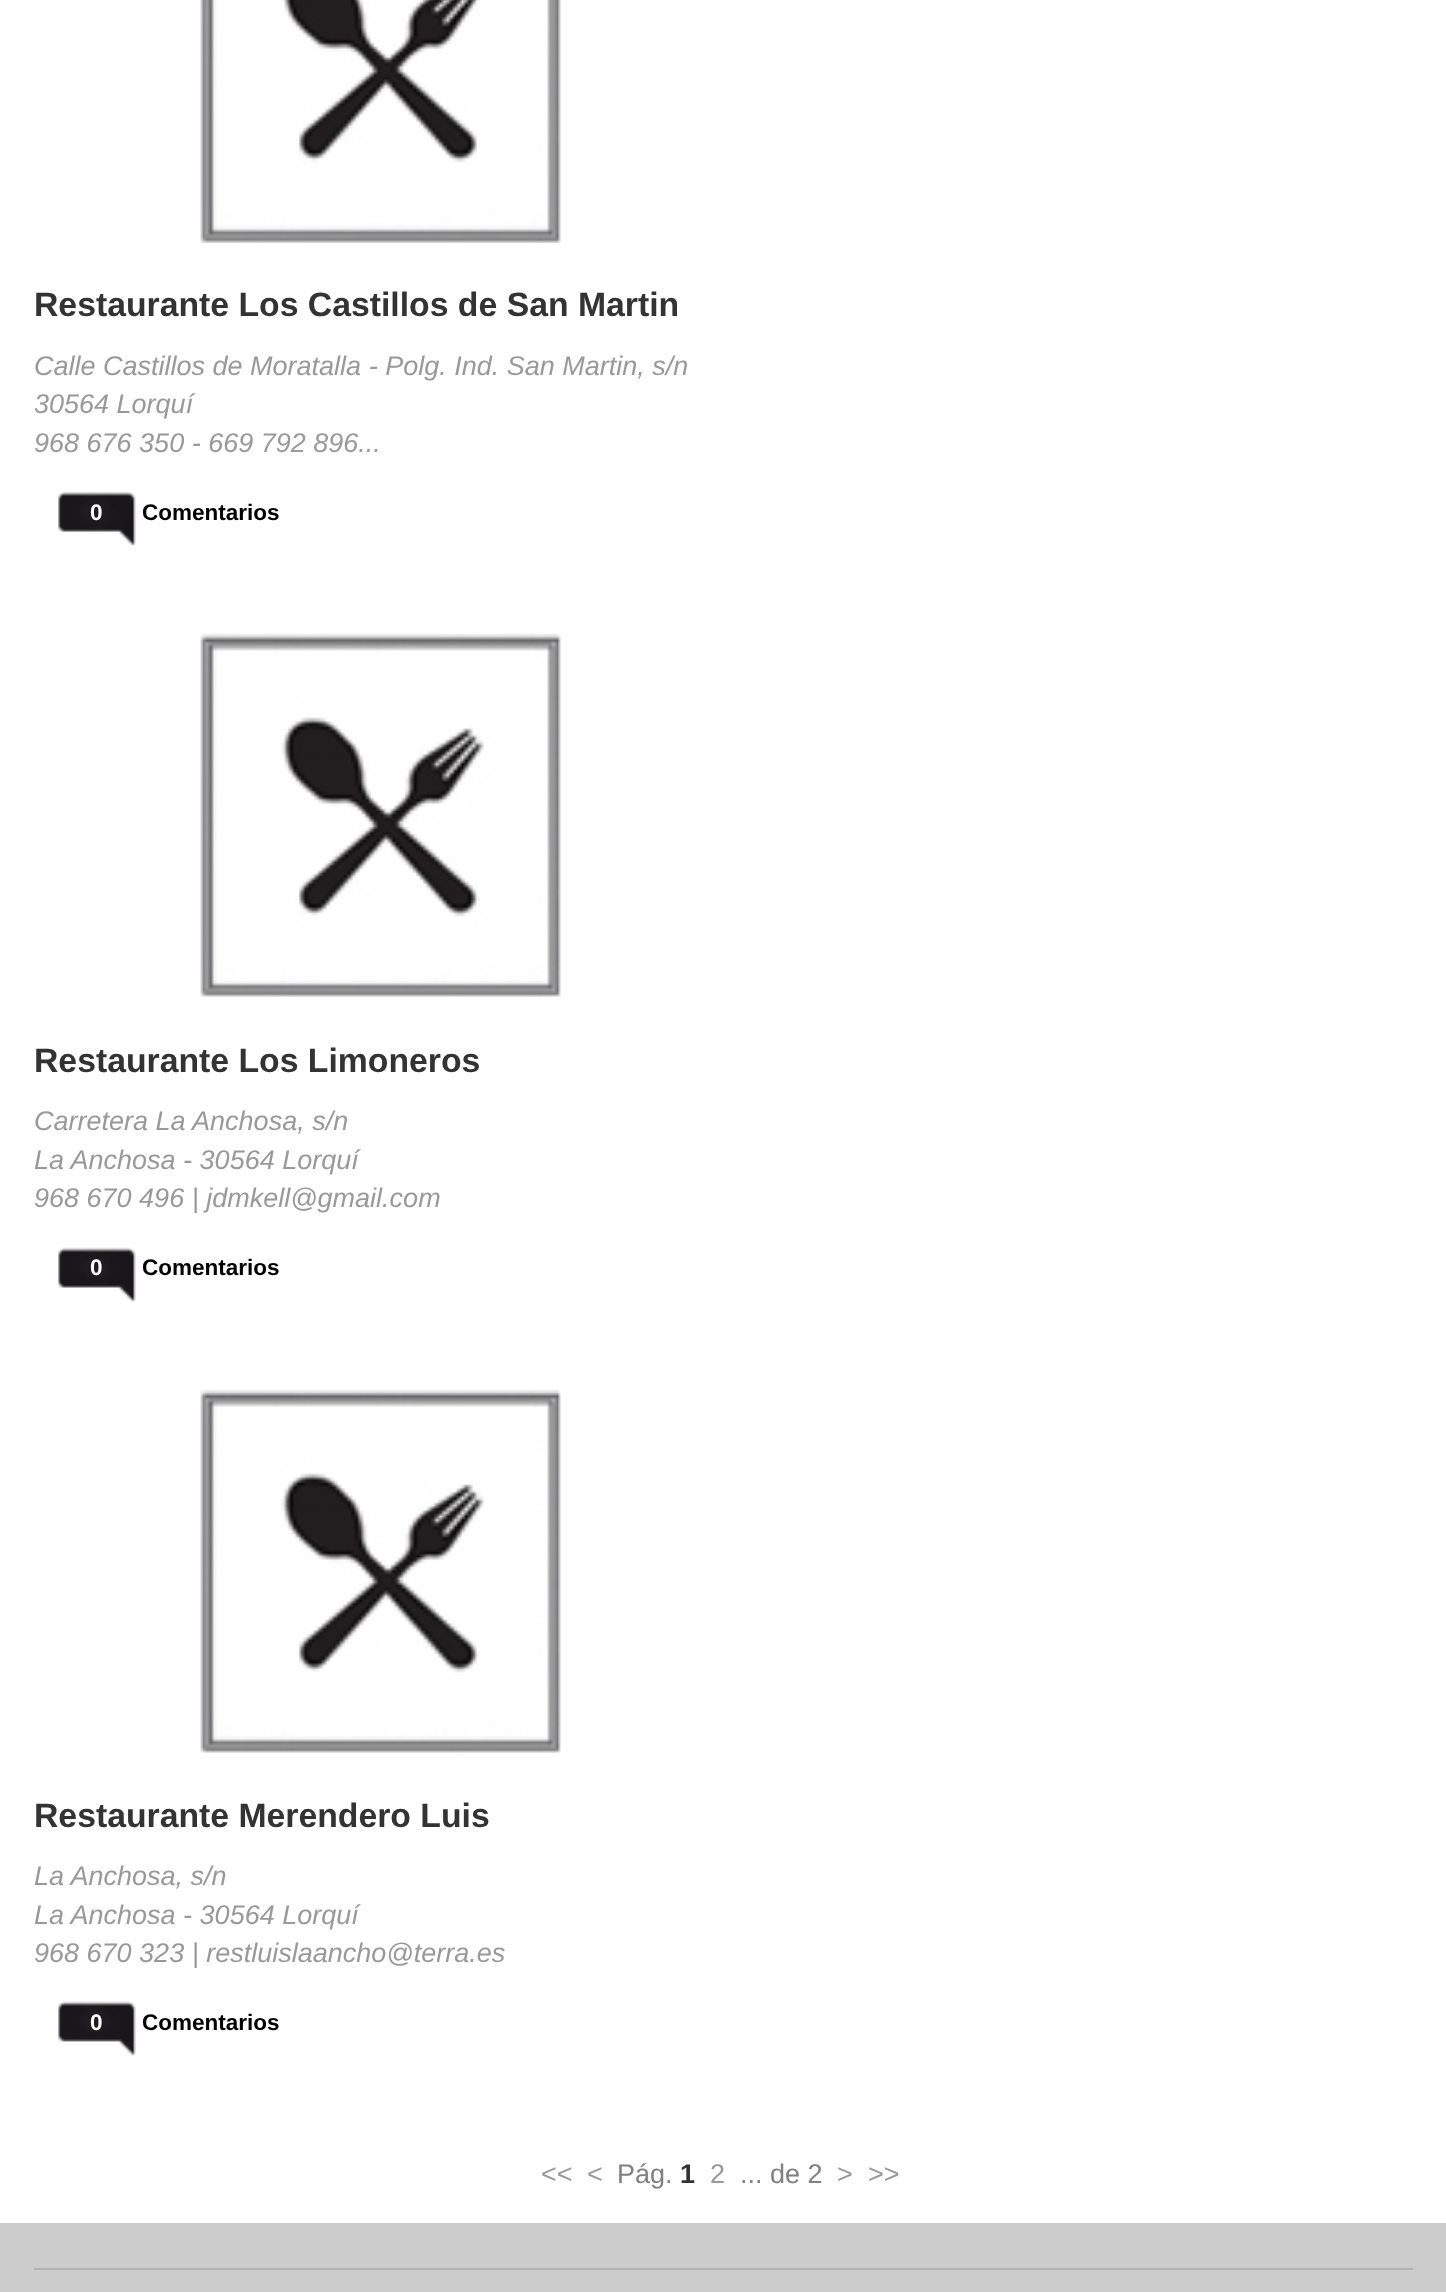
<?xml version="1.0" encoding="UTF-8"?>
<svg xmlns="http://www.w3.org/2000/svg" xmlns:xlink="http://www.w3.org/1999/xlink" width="1446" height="2292">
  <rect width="100%" height="100%" fill="#ffffff" />
  <image x="200" y="0" width="361" height="243" xlink:href="image1.png" />
  <image x="58" y="491" width="78" height="56" xlink:href="image2.png" />
  <image x="200" y="633" width="361" height="364" xlink:href="image3.png" />
  <image x="58" y="1247" width="78" height="56" xlink:href="image2.png" />
  <image x="200" y="1389" width="361" height="364" xlink:href="image3.png" />
  <image x="58" y="2001" width="78" height="55" xlink:href="image4.png" />
  <rect y="2223" width="1446" height="69" fill="#cccccc" />
  <rect x="34" y="2268" width="1379" height="2" fill="#b2b2b2" />
  <text x="34" y="316" style="font-family: Liberation Sans; font-size: 33.75px; font-weight: bold; fill: #333333">Restaurante Los Castillos de San Martin</text>
  <text x="34" y="375" style="font-family: Liberation Sans; font-size: 27px; font-style: italic; fill: #999999">Calle Castillos de Moratalla - Polg. Ind. San Martin, s/n</text>
  <text x="34" y="413" style="font-family: Liberation Sans; font-size: 27px; font-style: italic; fill: #999999">30564 Lorquí</text>
  <text x="34" y="452" style="font-family: Liberation Sans; font-size: 27px; font-style: italic; fill: #999999">968 676 350 - 669 792 896...</text>
  <text x="90" y="520" style="font-family: Liberation Sans; font-size: 22.5px; font-weight: bold; fill: #ffffff">0</text>
  <text x="142" y="520" style="font-family: Liberation Sans; font-size: 22.5px; font-weight: bold; fill: #000000">Comentarios</text>
  <text x="34" y="1072" style="font-family: Liberation Sans; font-size: 33.75px; font-weight: bold; fill: #333333">Restaurante Los Limoneros</text>
  <text x="34" y="1130" style="font-family: Liberation Sans; font-size: 27px; font-style: italic; fill: #999999">Carretera La Anchosa, s/n</text>
  <text x="34" y="1169" style="font-family: Liberation Sans; font-size: 27px; font-style: italic; fill: #999999">La Anchosa - 30564 Lorquí</text>
  <text x="34" y="1207" style="font-family: Liberation Sans; font-size: 27px; font-style: italic; fill: #999999">968 670 496 | jdmkell@gmail.com</text>
  <text x="90" y="1275" style="font-family: Liberation Sans; font-size: 22.5px; font-weight: bold; fill: #ffffff">0</text>
  <text x="142" y="1275" style="font-family: Liberation Sans; font-size: 22.5px; font-weight: bold; fill: #000000">Comentarios</text>
  <text x="34" y="1827" style="font-family: Liberation Sans; font-size: 33.75px; font-weight: bold; fill: #333333">Restaurante Merendero Luis</text>
  <text x="34" y="1885" style="font-family: Liberation Sans; font-size: 27px; font-style: italic; fill: #999999">La Anchosa, s/n</text>
  <text x="34" y="1924" style="font-family: Liberation Sans; font-size: 27px; font-style: italic; fill: #999999">La Anchosa - 30564 Lorquí</text>
  <text x="34" y="1962" style="font-family: Liberation Sans; font-size: 27px; font-style: italic; fill: #999999">968 670 323 | restluislaancho@terra.es</text>
  <text x="90" y="2030" style="font-family: Liberation Sans; font-size: 22.5px; font-weight: bold; fill: #ffffff">0</text>
  <text x="142" y="2030" style="font-family: Liberation Sans; font-size: 22.5px; font-weight: bold; fill: #000000">Comentarios</text>
  <text x="541" y="2183" style="font-family: Liberation Sans; font-size: 27px; fill: #999999">&lt;&lt;</text>
  <text x="587" y="2183" style="font-family: Liberation Sans; font-size: 27px; fill: #999999">&lt;</text>
  <text x="617" y="2183" style="font-family: Liberation Sans; font-size: 27px; fill: #808080">Pág.</text>
  <text x="680" y="2183" style="font-family: Liberation Sans; font-size: 27px; font-weight: bold; fill: #333333">1</text>
  <text x="710" y="2183" style="font-family: Liberation Sans; font-size: 27px; fill: #999999">2</text>
  <text x="740" y="2183" style="font-family: Liberation Sans; font-size: 27px; fill: #808080">... de 2</text>
  <text x="837" y="2183" style="font-family: Liberation Sans; font-size: 27px; fill: #999999">&gt;</text>
  <text x="868" y="2183" style="font-family: Liberation Sans; font-size: 27px; fill: #999999">&gt;&gt;</text>
</svg>
